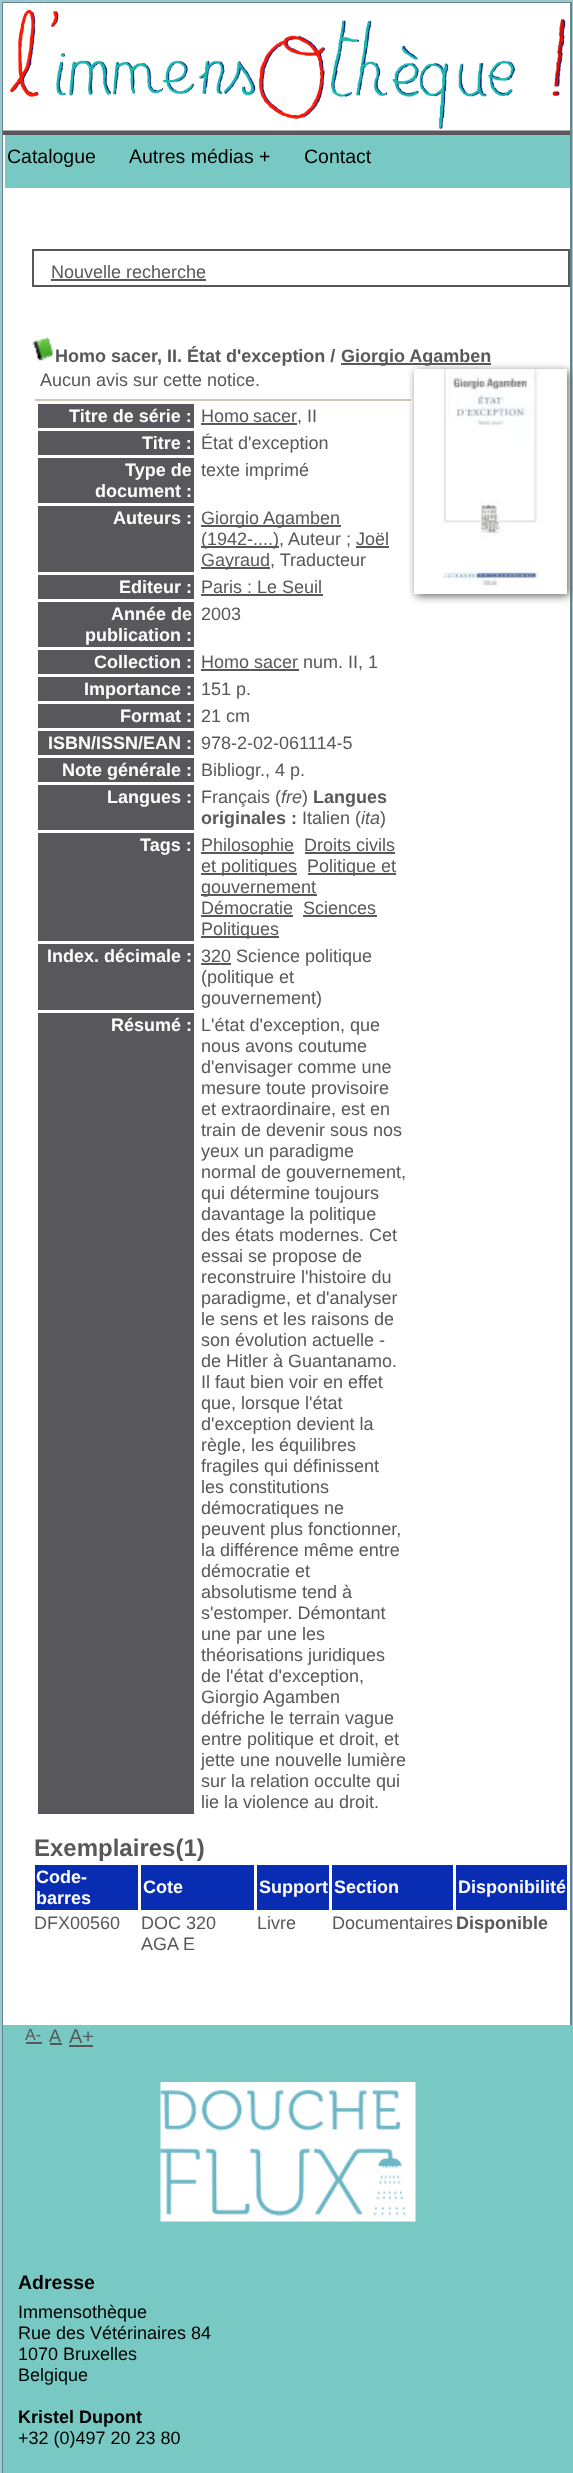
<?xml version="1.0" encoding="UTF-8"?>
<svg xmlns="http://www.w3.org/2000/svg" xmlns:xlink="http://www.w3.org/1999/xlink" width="573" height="2473">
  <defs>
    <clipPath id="clip1"><path d="M 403 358 h 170 v 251 h -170 z m 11 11 h 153 v 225 h -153 z" clip-rule="evenodd" /></clipPath>
  </defs>
  <rect width="100%" height="100%" fill="#99c9d2" />
  <rect x="3" y="3" width="568" height="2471" fill="none" stroke="#65858b" stroke-width="2" />
  <rect x="3" y="135" width="567" height="1890" fill="#ffffff" />
  <rect x="3" y="130" width="567" height="5" fill="#58585c" />
  <image x="3" y="3" width="567" height="128" xlink:href="image1.png" />
  <rect x="5" y="135" width="565" height="53" fill="#78c9c3" />
  <rect x="33" y="250" width="536" height="36" fill="none" stroke="#58585c" stroke-width="2" />
  <rect x="51" y="279" width="155" height="2" fill="#58585c" />
  <image x="32" y="337" width="21" height="24" xlink:href="image2.png" />
  <rect x="341" y="363" width="150" height="2" fill="#58585c" />
  <rect x="35" y="399" width="376" height="2" fill="#d0c6b4" />
  <rect x="38" y="404" width="156" height="24" fill="#58585c" />
  <rect x="201" y="423" width="96" height="2" fill="#58585c" />
  <rect x="38" y="431" width="156" height="24" fill="#58585c" />
  <rect x="38" y="458" width="156" height="45" fill="#58585c" />
  <rect x="38" y="506" width="156" height="66" fill="#58585c" />
  <rect x="201" y="525" width="140" height="2" fill="#58585c" />
  <rect x="201" y="546" width="78" height="2" fill="#58585c" />
  <rect x="356" y="546" width="33" height="2" fill="#58585c" />
  <rect x="201" y="567" width="69" height="2" fill="#58585c" />
  <rect x="38" y="575" width="156" height="24" fill="#58585c" />
  <rect x="201" y="594" width="122" height="2" fill="#58585c" />
  <rect x="38" y="602" width="156" height="45" fill="#58585c" />
  <rect x="38" y="650" width="156" height="24" fill="#58585c" />
  <rect x="201" y="669" width="98" height="2" fill="#58585c" />
  <rect x="38" y="677" width="156" height="24" fill="#58585c" />
  <rect x="38" y="704" width="156" height="24" fill="#58585c" />
  <rect x="38" y="731" width="156" height="24" fill="#58585c" />
  <rect x="38" y="758" width="156" height="24" fill="#58585c" />
  <rect x="38" y="785" width="156" height="45" fill="#58585c" />
  <rect x="38" y="833" width="156" height="108" fill="#58585c" />
  <rect x="201" y="852" width="93" height="2" fill="#58585c" />
  <rect x="305" y="852" width="90" height="2" fill="#58585c" />
  <rect x="201" y="873" width="96" height="2" fill="#58585c" />
  <rect x="308" y="873" width="88" height="2" fill="#58585c" />
  <rect x="201" y="894" width="116" height="2" fill="#58585c" />
  <rect x="201" y="915" width="92" height="2" fill="#58585c" />
  <rect x="303" y="915" width="74" height="2" fill="#58585c" />
  <rect x="201" y="936" width="78" height="2" fill="#58585c" />
  <rect x="38" y="944" width="156" height="66" fill="#58585c" />
  <rect x="201" y="963" width="30" height="2" fill="#58585c" />
  <rect x="38" y="1013" width="156" height="801" fill="#58585c" />
  <g clip-path="url(#clip1)">
    <rect x="416" y="371" width="153" height="225" fill="#666666" filter="blur(4px)" />
  </g>
  <image x="443" y="369" width="104" height="217" xlink:href="image3.png" />
  <rect x="35" y="1865" width="103" height="45" fill="#082db3" />
  <rect x="141" y="1865" width="113" height="45" fill="#082db3" />
  <rect x="257" y="1865" width="72" height="45" fill="#082db3" />
  <rect x="332" y="1865" width="121" height="45" fill="#082db3" />
  <rect x="456" y="1865" width="111" height="45" fill="#082db3" />
  <rect x="3" y="2025" width="570" height="448" fill="#78c9c3" />
  <rect x="26" y="2042" width="16" height="2" fill="#58585c" />
  <rect x="50" y="2043" width="12" height="2" fill="#58585c" />
  <rect x="69" y="2045" width="24" height="2" fill="#58585c" />
  <image x="160" y="2082" width="256" height="140" xlink:href="image4.png" />
  <text x="7" y="163" style="font-family: Liberation Sans; font-size: 19.5px; fill: #000000">Catalogue</text>
  <text x="129" y="163" style="font-family: Liberation Sans; font-size: 19.5px; fill: #000000">Autres médias +</text>
  <text x="304" y="163" style="font-family: Liberation Sans; font-size: 19.5px; fill: #000000">Contact</text>
  <text x="51" y="278" style="font-family: Liberation Sans; font-size: 18px; fill: #58585c">Nouvelle recherche</text>
  <text x="55" y="362" style="font-family: Liberation Sans; font-size: 18px; font-weight: bold; fill: #58585c">Homo sacer, II. État d'exception /</text>
  <text x="341" y="362" style="font-family: Liberation Sans; font-size: 18px; font-weight: bold; fill: #58585c">Giorgio Agamben</text>
  <text x="40" y="386" style="font-family: Liberation Sans; font-size: 18px; fill: #58585c">Aucun avis sur cette notice.</text>
  <text x="69" y="422" style="font-family: Liberation Sans; font-size: 18px; font-weight: bold; fill: #ffffff">Titre de série :</text>
  <text x="201" y="422" word-spacing="-1" style="font-family: Liberation Sans; font-size: 18px; fill: #58585c">Homo sacer</text>
  <text x="297" y="422" style="font-family: Liberation Sans; font-size: 18px; fill: #58585c">, II</text>
  <text x="142" y="449" style="font-family: Liberation Sans; font-size: 18px; font-weight: bold; fill: #ffffff">Titre :</text>
  <text x="201" y="449" style="font-family: Liberation Sans; font-size: 18px; fill: #58585c">État d'exception</text>
  <text x="125" y="476" style="font-family: Liberation Sans; font-size: 18px; font-weight: bold; fill: #ffffff">Type de</text>
  <text x="95" y="497" style="font-family: Liberation Sans; font-size: 18px; font-weight: bold; fill: #ffffff">document :</text>
  <text x="201" y="476" style="font-family: Liberation Sans; font-size: 18px; fill: #58585c">texte imprimé</text>
  <text x="113" y="524" style="font-family: Liberation Sans; font-size: 18px; font-weight: bold; fill: #ffffff">Auteurs :</text>
  <text x="201" y="524" style="font-family: Liberation Sans; font-size: 18px; fill: #58585c">Giorgio Agamben</text>
  <text x="201" y="545" style="font-family: Liberation Sans; font-size: 18px; fill: #58585c">(1942-....), Auteur ; Joël</text>
  <text x="201" y="566" style="font-family: Liberation Sans; font-size: 18px; fill: #58585c">Gayraud, Traducteur</text>
  <text x="119" y="593" style="font-family: Liberation Sans; font-size: 18px; font-weight: bold; fill: #ffffff">Editeur :</text>
  <text x="201" y="593" style="font-family: Liberation Sans; font-size: 18px; fill: #58585c">Paris : Le Seuil</text>
  <text x="111" y="620" style="font-family: Liberation Sans; font-size: 18px; font-weight: bold; fill: #ffffff">Année de</text>
  <text x="85" y="641" style="font-family: Liberation Sans; font-size: 18px; font-weight: bold; fill: #ffffff">publication :</text>
  <text x="201" y="620" style="font-family: Liberation Sans; font-size: 18px; fill: #58585c">2003</text>
  <text x="94" y="668" style="font-family: Liberation Sans; font-size: 18px; font-weight: bold; fill: #ffffff">Collection :</text>
  <text x="201" y="668" style="font-family: Liberation Sans; font-size: 18px; fill: #58585c">Homo sacer num. II, 1</text>
  <text x="84" y="695" style="font-family: Liberation Sans; font-size: 18px; font-weight: bold; fill: #ffffff">Importance :</text>
  <text x="201" y="695" style="font-family: Liberation Sans; font-size: 18px; fill: #58585c">151 p.</text>
  <text x="120" y="722" style="font-family: Liberation Sans; font-size: 18px; font-weight: bold; fill: #ffffff">Format :</text>
  <text x="201" y="722" style="font-family: Liberation Sans; font-size: 18px; fill: #58585c">21 cm</text>
  <text x="48" y="749" style="font-family: Liberation Sans; font-size: 18px; font-weight: bold; fill: #ffffff">ISBN/ISSN/EAN :</text>
  <text x="201" y="749" style="font-family: Liberation Sans; font-size: 18px; fill: #58585c">978-2-02-061114-5</text>
  <text x="62" y="776" style="font-family: Liberation Sans; font-size: 18px; font-weight: bold; fill: #ffffff">Note générale :</text>
  <text x="201" y="776" style="font-family: Liberation Sans; font-size: 18px; fill: #58585c">Bibliogr., 4 p.</text>
  <text x="107" y="803" style="font-family: Liberation Sans; font-size: 18px; font-weight: bold; fill: #ffffff">Langues :</text>
  <text x="201" y="803" style="font-family: Liberation Sans; font-size: 18px; fill: #58585c">Français (</text>
  <text x="281" y="803" style="font-family: Liberation Sans; font-size: 18px; font-style: italic; fill: #58585c">fre</text>
  <text x="302" y="803" style="font-family: Liberation Sans; font-size: 18px; fill: #58585c">)</text>
  <text x="313" y="803" style="font-family: Liberation Sans; font-size: 18px; font-weight: bold; fill: #58585c">Langues</text>
  <text x="201" y="824" style="font-family: Liberation Sans; font-size: 18px; font-weight: bold; fill: #58585c">originales :</text>
  <text x="302" y="824" style="font-family: Liberation Sans; font-size: 18px; fill: #58585c">Italien (</text>
  <text x="361" y="824" style="font-family: Liberation Sans; font-size: 18px; font-style: italic; fill: #58585c">ita</text>
  <text x="380" y="824" style="font-family: Liberation Sans; font-size: 18px; fill: #58585c">)</text>
  <text x="140" y="851" style="font-family: Liberation Sans; font-size: 18px; font-weight: bold; fill: #ffffff">Tags :</text>
  <text x="201" y="851" style="font-family: Liberation Sans; font-size: 18px; fill: #58585c">Philosophie</text>
  <text x="304" y="851" style="font-family: Liberation Sans; font-size: 18px; fill: #58585c">Droits civils</text>
  <text x="201" y="872" style="font-family: Liberation Sans; font-size: 18px; fill: #58585c">et politiques</text>
  <text x="307" y="872" style="font-family: Liberation Sans; font-size: 18px; fill: #58585c">Politique et</text>
  <text x="201" y="893" style="font-family: Liberation Sans; font-size: 18px; fill: #58585c">gouvernement</text>
  <text x="201" y="914" style="font-family: Liberation Sans; font-size: 18px; fill: #58585c">Démocratie</text>
  <text x="303" y="914" style="font-family: Liberation Sans; font-size: 18px; fill: #58585c">Sciences</text>
  <text x="201" y="935" style="font-family: Liberation Sans; font-size: 18px; fill: #58585c">Politiques</text>
  <text x="47" y="962" style="font-family: Liberation Sans; font-size: 18px; font-weight: bold; fill: #ffffff">Index. décimale :</text>
  <text x="201" y="962" style="font-family: Liberation Sans; font-size: 18px; fill: #58585c">320 Science politique</text>
  <text x="201" y="983" style="font-family: Liberation Sans; font-size: 18px; fill: #58585c">(politique et</text>
  <text x="201" y="1004" style="font-family: Liberation Sans; font-size: 18px; fill: #58585c">gouvernement)</text>
  <text x="111" y="1031" style="font-family: Liberation Sans; font-size: 18px; font-weight: bold; fill: #ffffff">Résumé :</text>
  <text x="201" y="1031" style="font-family: Liberation Sans; font-size: 18px; fill: #58585c">L'état d'exception, que</text>
  <text x="201" y="1052" style="font-family: Liberation Sans; font-size: 18px; fill: #58585c">nous avons coutume</text>
  <text x="201" y="1073" style="font-family: Liberation Sans; font-size: 18px; fill: #58585c">d'envisager comme une</text>
  <text x="201" y="1094" style="font-family: Liberation Sans; font-size: 18px; fill: #58585c">mesure toute provisoire</text>
  <text x="201" y="1115" style="font-family: Liberation Sans; font-size: 18px; fill: #58585c">et extraordinaire, est en</text>
  <text x="201" y="1136" style="font-family: Liberation Sans; font-size: 18px; fill: #58585c">train de devenir sous nos</text>
  <text x="201" y="1157" style="font-family: Liberation Sans; font-size: 18px; fill: #58585c">yeux un paradigme</text>
  <text x="201" y="1178" style="font-family: Liberation Sans; font-size: 18px; fill: #58585c">normal de gouvernement,</text>
  <text x="201" y="1199" style="font-family: Liberation Sans; font-size: 18px; fill: #58585c">qui détermine toujours</text>
  <text x="201" y="1220" style="font-family: Liberation Sans; font-size: 18px; fill: #58585c">davantage la politique</text>
  <text x="201" y="1241" style="font-family: Liberation Sans; font-size: 18px; fill: #58585c">des états modernes. Cet</text>
  <text x="201" y="1262" style="font-family: Liberation Sans; font-size: 18px; fill: #58585c">essai se propose de</text>
  <text x="201" y="1283" style="font-family: Liberation Sans; font-size: 18px; fill: #58585c">reconstruire l'histoire du</text>
  <text x="201" y="1304" style="font-family: Liberation Sans; font-size: 18px; fill: #58585c">paradigme, et d'analyser</text>
  <text x="201" y="1325" style="font-family: Liberation Sans; font-size: 18px; fill: #58585c">le sens et les raisons de</text>
  <text x="201" y="1346" style="font-family: Liberation Sans; font-size: 18px; fill: #58585c">son évolution actuelle -</text>
  <text x="201" y="1367" style="font-family: Liberation Sans; font-size: 18px; fill: #58585c">de Hitler à Guantanamo.</text>
  <text x="201" y="1388" style="font-family: Liberation Sans; font-size: 18px; fill: #58585c">Il faut bien voir en effet</text>
  <text x="201" y="1409" style="font-family: Liberation Sans; font-size: 18px; fill: #58585c">que, lorsque l'état</text>
  <text x="201" y="1430" style="font-family: Liberation Sans; font-size: 18px; fill: #58585c">d'exception devient la</text>
  <text x="201" y="1451" style="font-family: Liberation Sans; font-size: 18px; fill: #58585c">règle, les équilibres</text>
  <text x="201" y="1472" style="font-family: Liberation Sans; font-size: 18px; fill: #58585c">fragiles qui définissent</text>
  <text x="201" y="1493" style="font-family: Liberation Sans; font-size: 18px; fill: #58585c">les constitutions</text>
  <text x="201" y="1514" style="font-family: Liberation Sans; font-size: 18px; fill: #58585c">démocratiques ne</text>
  <text x="201" y="1535" style="font-family: Liberation Sans; font-size: 18px; fill: #58585c">peuvent plus fonctionner,</text>
  <text x="201" y="1556" style="font-family: Liberation Sans; font-size: 18px; fill: #58585c">la différence même entre</text>
  <text x="201" y="1577" style="font-family: Liberation Sans; font-size: 18px; fill: #58585c">démocratie et</text>
  <text x="201" y="1598" style="font-family: Liberation Sans; font-size: 18px; fill: #58585c">absolutisme tend à</text>
  <text x="201" y="1619" style="font-family: Liberation Sans; font-size: 18px; fill: #58585c">s'estomper. Démontant</text>
  <text x="201" y="1640" style="font-family: Liberation Sans; font-size: 18px; fill: #58585c">une par une les</text>
  <text x="201" y="1661" style="font-family: Liberation Sans; font-size: 18px; fill: #58585c">théorisations juridiques</text>
  <text x="201" y="1682" style="font-family: Liberation Sans; font-size: 18px; fill: #58585c">de l'état d'exception,</text>
  <text x="201" y="1703" style="font-family: Liberation Sans; font-size: 18px; fill: #58585c">Giorgio Agamben</text>
  <text x="201" y="1724" style="font-family: Liberation Sans; font-size: 18px; fill: #58585c">défriche le terrain vague</text>
  <text x="201" y="1745" style="font-family: Liberation Sans; font-size: 18px; fill: #58585c">entre politique et droit, et</text>
  <text x="201" y="1766" style="font-family: Liberation Sans; font-size: 18px; fill: #58585c">jette une nouvelle lumière</text>
  <text x="201" y="1787" style="font-family: Liberation Sans; font-size: 18px; fill: #58585c">sur la relation occulte qui</text>
  <text x="201" y="1808" style="font-family: Liberation Sans; font-size: 18px; fill: #58585c">lie la violence au droit.</text>
  <text x="34" y="1856" style="font-family: Liberation Sans; font-size: 24px; font-weight: bold; fill: #58585c">Exemplaires(1)</text>
  <text x="36" y="1883" style="font-family: Liberation Sans; font-size: 18px; font-weight: bold; fill: #ffffff">Code-</text>
  <text x="36" y="1904" style="font-family: Liberation Sans; font-size: 18px; font-weight: bold; fill: #ffffff">barres</text>
  <text x="143" y="1893" style="font-family: Liberation Sans; font-size: 18px; font-weight: bold; fill: #ffffff">Cote</text>
  <text x="259" y="1893" style="font-family: Liberation Sans; font-size: 18px; font-weight: bold; fill: #ffffff">Support</text>
  <text x="334" y="1893" style="font-family: Liberation Sans; font-size: 18px; font-weight: bold; fill: #ffffff">Section</text>
  <text x="458" y="1893" style="font-family: Liberation Sans; font-size: 18px; font-weight: bold; fill: #ffffff">Disponibilité</text>
  <text x="34" y="1929" style="font-family: Liberation Sans; font-size: 18px; fill: #58585c">DFX00560</text>
  <text x="141" y="1929" style="font-family: Liberation Sans; font-size: 18px; fill: #58585c">DOC 320</text>
  <text x="141" y="1950" style="font-family: Liberation Sans; font-size: 18px; fill: #58585c">AGA E</text>
  <text x="257" y="1929" style="font-family: Liberation Sans; font-size: 18px; fill: #58585c">Livre</text>
  <text x="332" y="1929" style="font-family: Liberation Sans; font-size: 18px; fill: #58585c">Documentaires</text>
  <text x="456" y="1929" style="font-family: Liberation Sans; font-size: 18px; font-weight: bold; fill: #58585c">Disponible</text>
  <text x="25" y="2040" style="font-family: Liberation Sans; font-size: 16px; fill: #58585c">A-</text>
  <text x="49" y="2042" style="font-family: Liberation Sans; font-size: 18px; fill: #58585c">A</text>
  <text x="69" y="2043" style="font-family: Liberation Sans; font-size: 20px; fill: #58585c">A+</text>
  <text x="18" y="2289" style="font-family: Liberation Sans; font-size: 19.5px; font-weight: bold; fill: #000000">Adresse</text>
  <text x="18" y="2318" style="font-family: Liberation Sans; font-size: 18px; fill: #000000">Immensothèque</text>
  <text x="18" y="2339" style="font-family: Liberation Sans; font-size: 18px; fill: #000000">Rue des Vétérinaires 84</text>
  <text x="18" y="2360" style="font-family: Liberation Sans; font-size: 18px; fill: #000000">1070 Bruxelles</text>
  <text x="18" y="2381" style="font-family: Liberation Sans; font-size: 18px; fill: #000000">Belgique</text>
  <text x="18" y="2423" style="font-family: Liberation Sans; font-size: 18px; font-weight: bold; fill: #000000">Kristel Dupont</text>
  <text x="18" y="2444" style="font-family: Liberation Sans; font-size: 18px; fill: #000000">+32 (0)497 20 23 80</text>
</svg>
